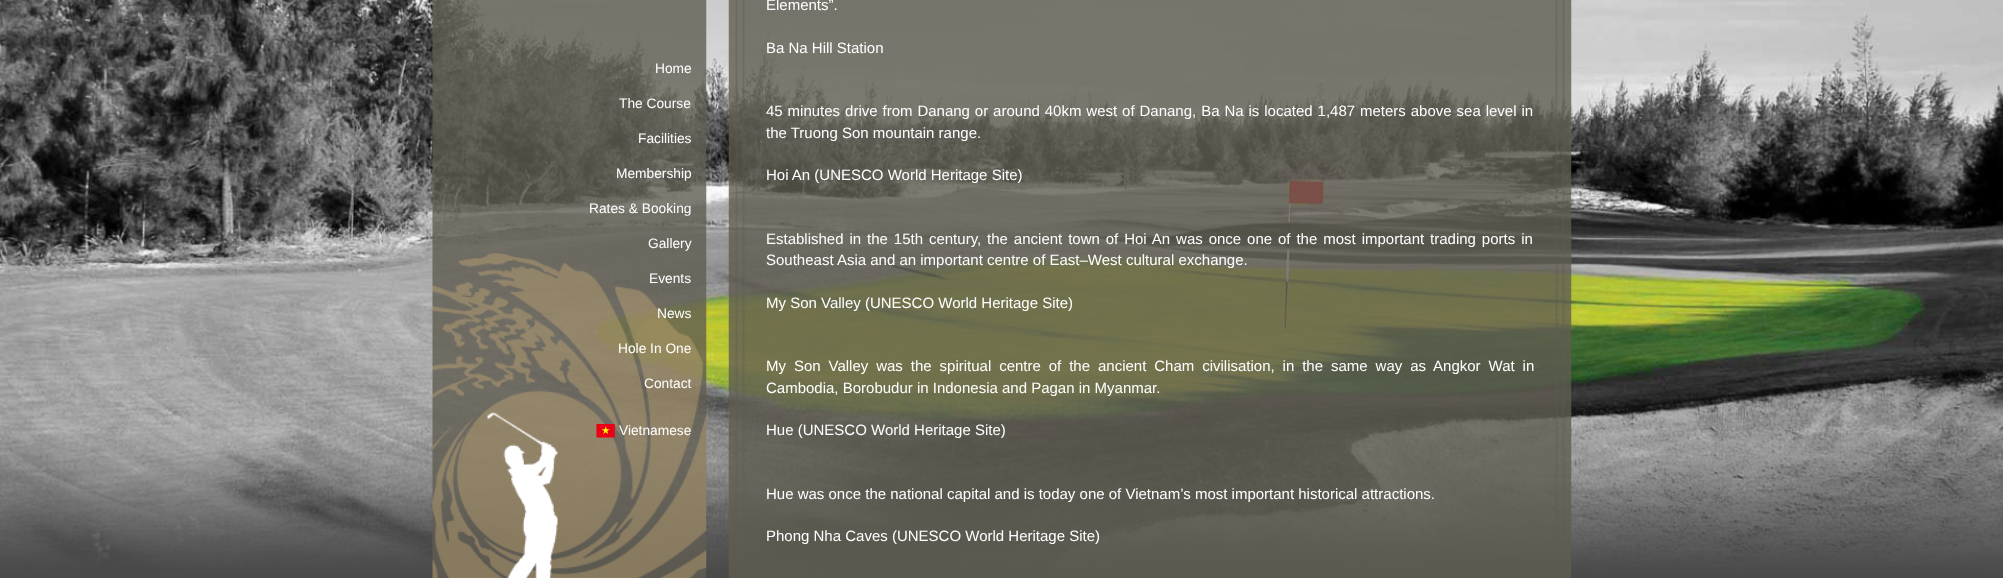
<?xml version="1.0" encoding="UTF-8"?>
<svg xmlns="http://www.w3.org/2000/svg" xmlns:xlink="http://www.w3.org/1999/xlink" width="2003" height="578">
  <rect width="100%" height="100%" fill="#ffffff" />
  <image x="0" y="0" width="2003" height="574" xlink:href="image1.png" />
  <image x="0" y="434" width="2003" height="144" xlink:href="image6.png" />
  <image x="1069" y="543" width="382" height="15" xlink:href="image2.png" />
  <image x="432" y="0" width="275" height="578" xlink:href="image3.png" />
  <image x="596" y="424" width="19" height="14" xlink:href="image4.png" />
  <image x="728" y="0" width="844" height="578" xlink:href="image5.png" />
  <text x="655" y="73" style="font-family: Liberation Sans; font-size: 13.75px; fill: #ffffff">Home</text>
  <text x="619" y="108" style="font-family: Liberation Sans; font-size: 13.75px; fill: #ffffff">The Course</text>
  <text x="638" y="143" style="font-family: Liberation Sans; font-size: 13.75px; fill: #ffffff">Facilities</text>
  <text x="616" y="178" style="font-family: Liberation Sans; font-size: 13.75px; fill: #ffffff">Membership</text>
  <text x="589" y="213" style="font-family: Liberation Sans; font-size: 13.75px; fill: #ffffff">Rates &amp; Booking</text>
  <text x="648" y="248" style="font-family: Liberation Sans; font-size: 13.75px; fill: #ffffff">Gallery</text>
  <text x="649" y="283" style="font-family: Liberation Sans; font-size: 13.75px; fill: #ffffff">Events</text>
  <text x="657" y="318" style="font-family: Liberation Sans; font-size: 13.75px; fill: #ffffff">News</text>
  <text x="618" y="353" style="font-family: Liberation Sans; font-size: 13.75px; fill: #ffffff">Hole In One</text>
  <text x="644" y="388" style="font-family: Liberation Sans; font-size: 13.75px; fill: #ffffff">Contact</text>
  <text x="619" y="435" style="font-family: Liberation Sans; font-size: 13.75px; fill: #ffffff">Vietnamese</text>
  <text x="766" y="10" style="font-family: Liberation Sans; font-size: 15px; fill: #ffffff">Elements”.</text>
  <text x="766" y="53" style="font-family: Liberation Sans; font-size: 15px; fill: #ffffff">Ba Na Hill Station</text>
  <text x="766" y="116" word-spacing="0.75" style="font-family: Liberation Sans; font-size: 15px; fill: #ffffff">45 minutes drive from Danang or around 40km west of Danang, Ba Na is located 1,487 meters above sea level in</text>
  <text x="766" y="138" style="font-family: Liberation Sans; font-size: 15px; fill: #ffffff">the Truong Son mountain range.</text>
  <text x="766" y="180" style="font-family: Liberation Sans; font-size: 15px; fill: #ffffff">Hoi An (UNESCO World Heritage Site)</text>
  <text x="766" y="244" word-spacing="1.75" style="font-family: Liberation Sans; font-size: 15px; fill: #ffffff">Established in the 15th century, the ancient town of Hoi An was once one of the most important trading ports in</text>
  <text x="766" y="265" style="font-family: Liberation Sans; font-size: 15px; fill: #ffffff">Southeast Asia and an important centre of East–West cultural exchange.</text>
  <text x="766" y="308" style="font-family: Liberation Sans; font-size: 15px; fill: #ffffff">My Son Valley (UNESCO World Heritage Site)</text>
  <text x="766" y="371" word-spacing="3.75" style="font-family: Liberation Sans; font-size: 15px; fill: #ffffff">My Son Valley was the spiritual centre of the ancient Cham civilisation, in the same way as Angkor Wat in</text>
  <text x="766" y="393" style="font-family: Liberation Sans; font-size: 15px; fill: #ffffff">Cambodia, Borobudur in Indonesia and Pagan in Myanmar.</text>
  <text x="766" y="435" style="font-family: Liberation Sans; font-size: 15px; fill: #ffffff">Hue (UNESCO World Heritage Site)</text>
  <text x="766" y="499" style="font-family: Liberation Sans; font-size: 15px; fill: #ffffff">Hue was once the national capital and is today one of Vietnam’s most important historical attractions.</text>
  <text x="766" y="541" style="font-family: Liberation Sans; font-size: 15px; fill: #ffffff">Phong Nha Caves (UNESCO World Heritage Site)</text>
</svg>
